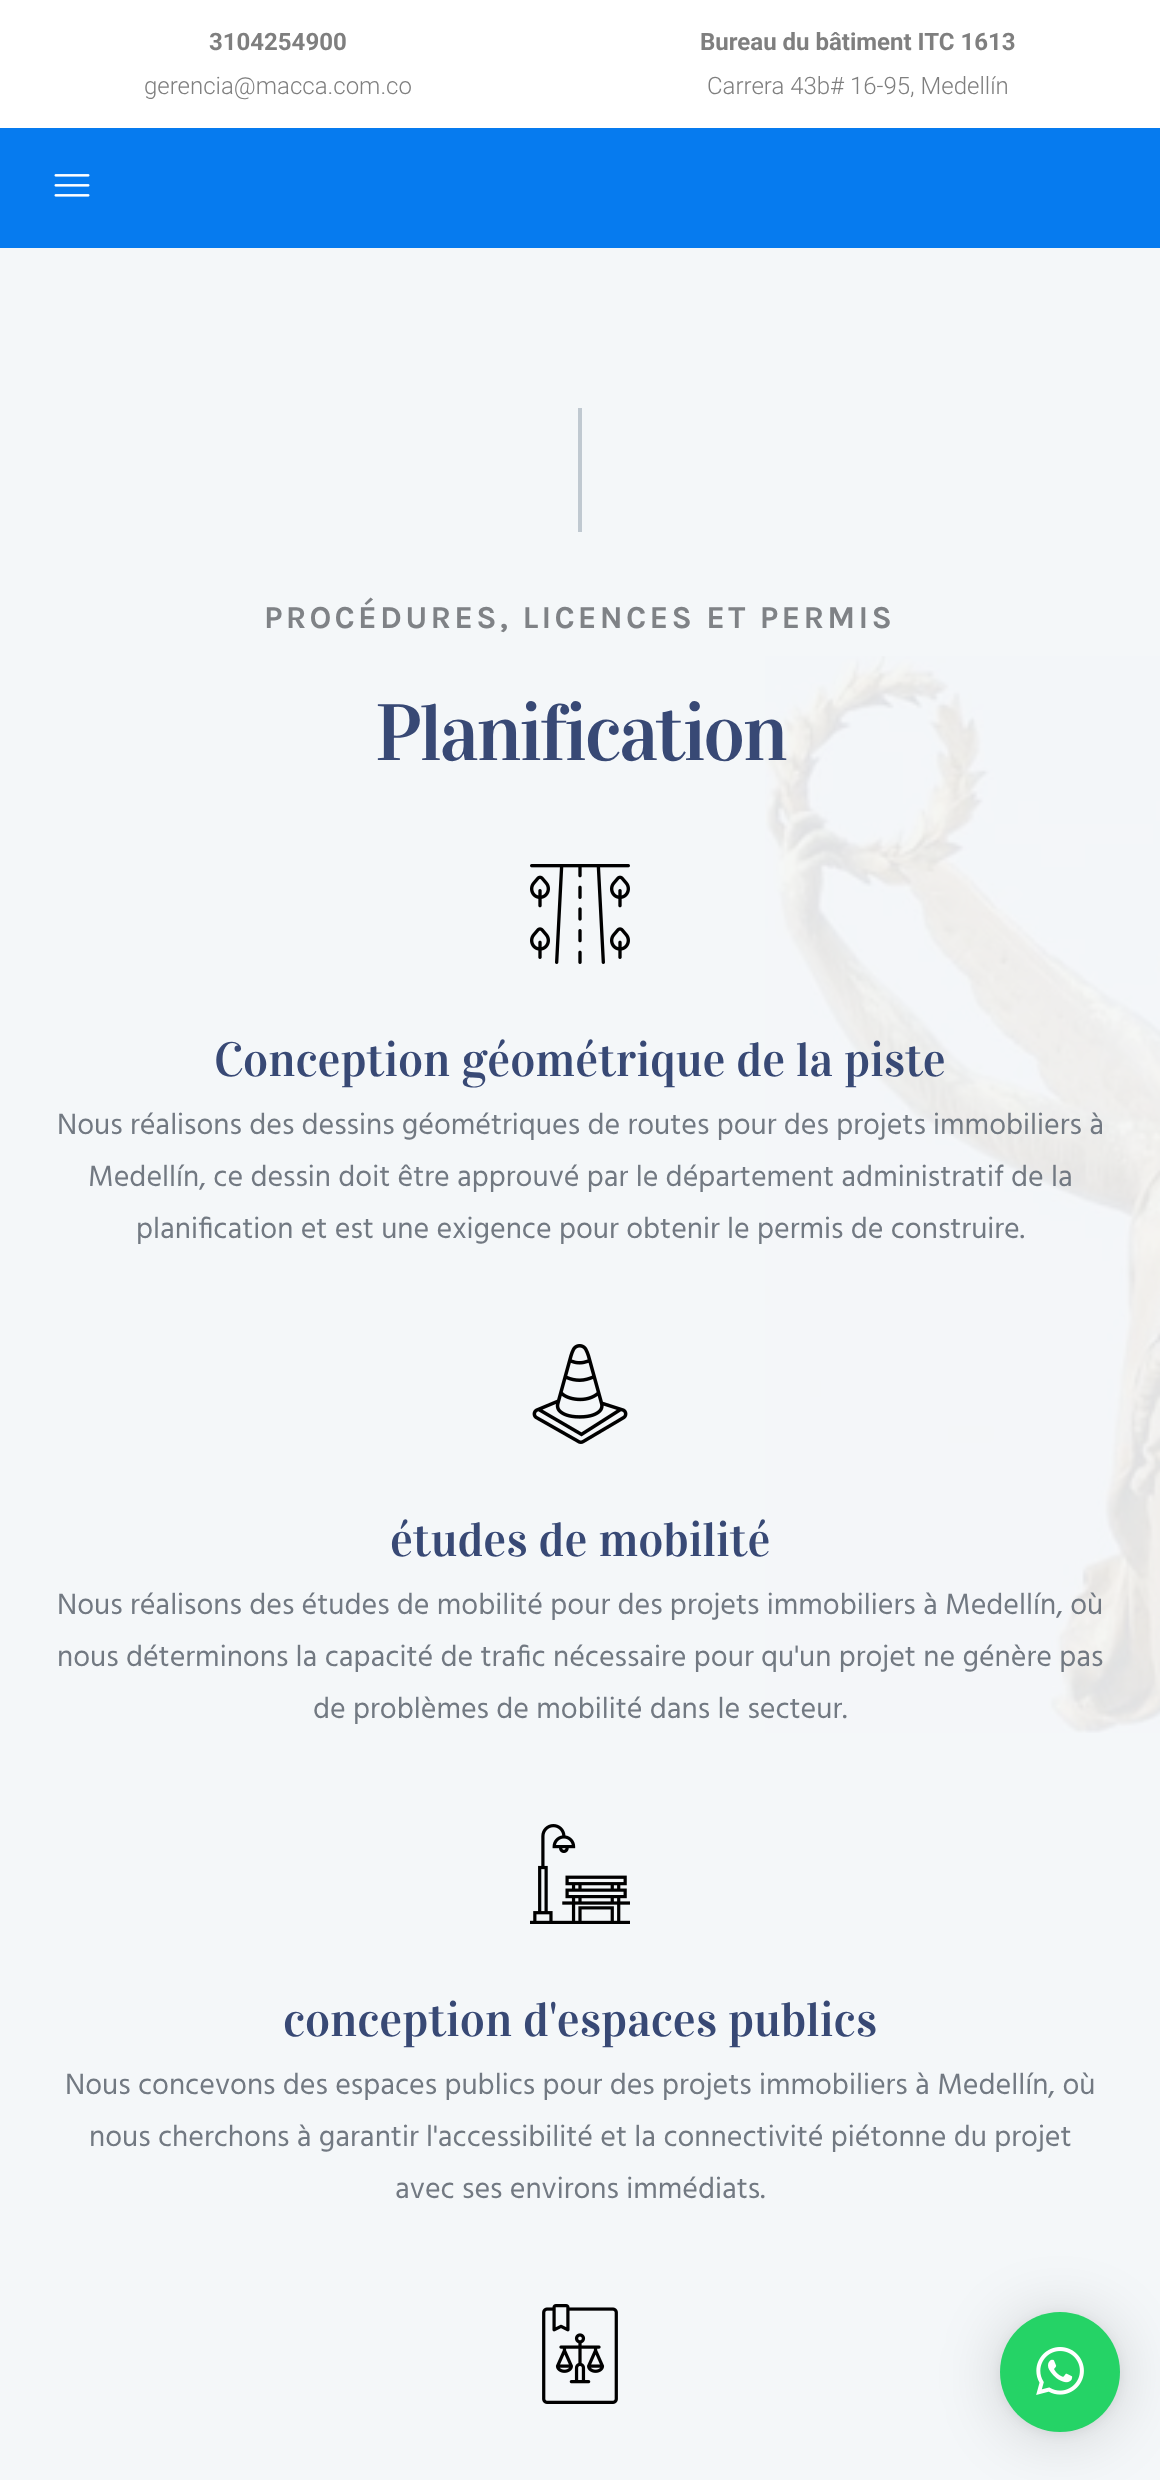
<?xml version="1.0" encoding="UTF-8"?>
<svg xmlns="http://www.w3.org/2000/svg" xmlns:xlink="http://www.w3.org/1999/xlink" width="1160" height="2480">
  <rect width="100%" height="100%" fill="#f4f7f9" />
  <rect width="1160" height="128" fill="#ffffff" />
  <rect y="128" width="1160" height="120" fill="#067bef" />
  <image x="54" y="174" width="36" height="23" xlink:href="image1.png" />
  <rect x="578" y="408" width="4" height="124" fill="#c0c9d1" />
  <image x="530" y="864" width="100" height="100" xlink:href="image2.png" />
  <image x="532" y="1344" width="96" height="100" xlink:href="image3.png" />
  <image x="530" y="1824" width="100" height="100" xlink:href="image4.png" />
  <image x="542" y="2304" width="76" height="100" xlink:href="image5.png" />
  <image x="765" y="656" width="395" height="1077" xlink:href="image6.png" />
  <rect x="1000" y="2316" width="120" height="120" rx="60" fill="#000000" fill-opacity="0.16" filter="blur(32px)" />
  <rect x="1000" y="2314" width="120" height="120" rx="60" fill="#000000" fill-opacity="0.06" filter="blur(6px)" />
  <circle cx="1060" cy="2372" r="60" fill="#25d366" />
  <image x="1036" y="2347" width="48" height="48" xlink:href="image7.png" />
  <text x="209" y="50" style="font-family: Roboto; font-size: 24px; font-weight: bold; fill: #7f7f7f">3104254900</text>
  <text x="144" y="94" style="font-family: Roboto; font-size: 24px; font-weight: 300; fill: #7f7f7f">gerencia@macca.com.co</text>
  <text x="700" y="50" style="font-family: Roboto; font-size: 24px; font-weight: bold; fill: #7f7f7f">Bureau du bâtiment ITC 1613</text>
  <text x="707" y="94" style="font-family: Roboto; font-size: 24px; font-weight: 300; fill: #7f7f7f">Carrera 43b# 16-95, Medellín</text>
  <text x="264" y="628" style="font-family: Karla; font-size: 32px; font-weight: bold; letter-spacing: 3.2px; fill: #7f8286">PROCÉDURES, LICENCES ET PERMIS</text>
  <text x="375" y="760" style="font-family: Vidaloka; font-size: 80px; letter-spacing: -2.4px; fill: #384975">Planification</text>
  <text x="214" y="1076" style="font-family: Vidaloka; font-size: 48px; fill: #384975">Conception géométrique de la piste</text>
  <text x="57" y="1134" style="font-family: Hind; font-size: 30px; fill: #727982">Nous réalisons des dessins géométriques de routes pour des projets immobiliers à</text>
  <text x="88" y="1186" style="font-family: Hind; font-size: 30px; fill: #727982">Medellín, ce dessin doit être approuvé par le département administratif de la</text>
  <text x="136" y="1238" style="font-family: Hind; font-size: 30px; fill: #727982">planification et est une exigence pour obtenir le permis de construire.</text>
  <text x="390" y="1556" style="font-family: Vidaloka; font-size: 48px; fill: #384975">études de mobilité</text>
  <text x="57" y="1614" style="font-family: Hind; font-size: 30px; fill: #727982">Nous réalisons des études de mobilité pour des projets immobiliers à Medellín, où</text>
  <text x="57" y="1666" style="font-family: Hind; font-size: 30px; fill: #727982">nous déterminons la capacité de trafic nécessaire pour qu'un projet ne génère pas</text>
  <text x="313" y="1718" style="font-family: Hind; font-size: 30px; fill: #727982">de problèmes de mobilité dans le secteur.</text>
  <text x="283" y="2036" style="font-family: Vidaloka; font-size: 48px; fill: #384975">conception d'espaces publics</text>
  <text x="65" y="2094" style="font-family: Hind; font-size: 30px; fill: #727982">Nous concevons des espaces publics pour des projets immobiliers à Medellín, où</text>
  <text x="89" y="2146" style="font-family: Hind; font-size: 30px; fill: #727982">nous cherchons à garantir l'accessibilité et la connectivité piétonne du projet</text>
  <text x="395" y="2198" style="font-family: Hind; font-size: 30px; fill: #727982">avec ses environs immédiats.</text>
</svg>
